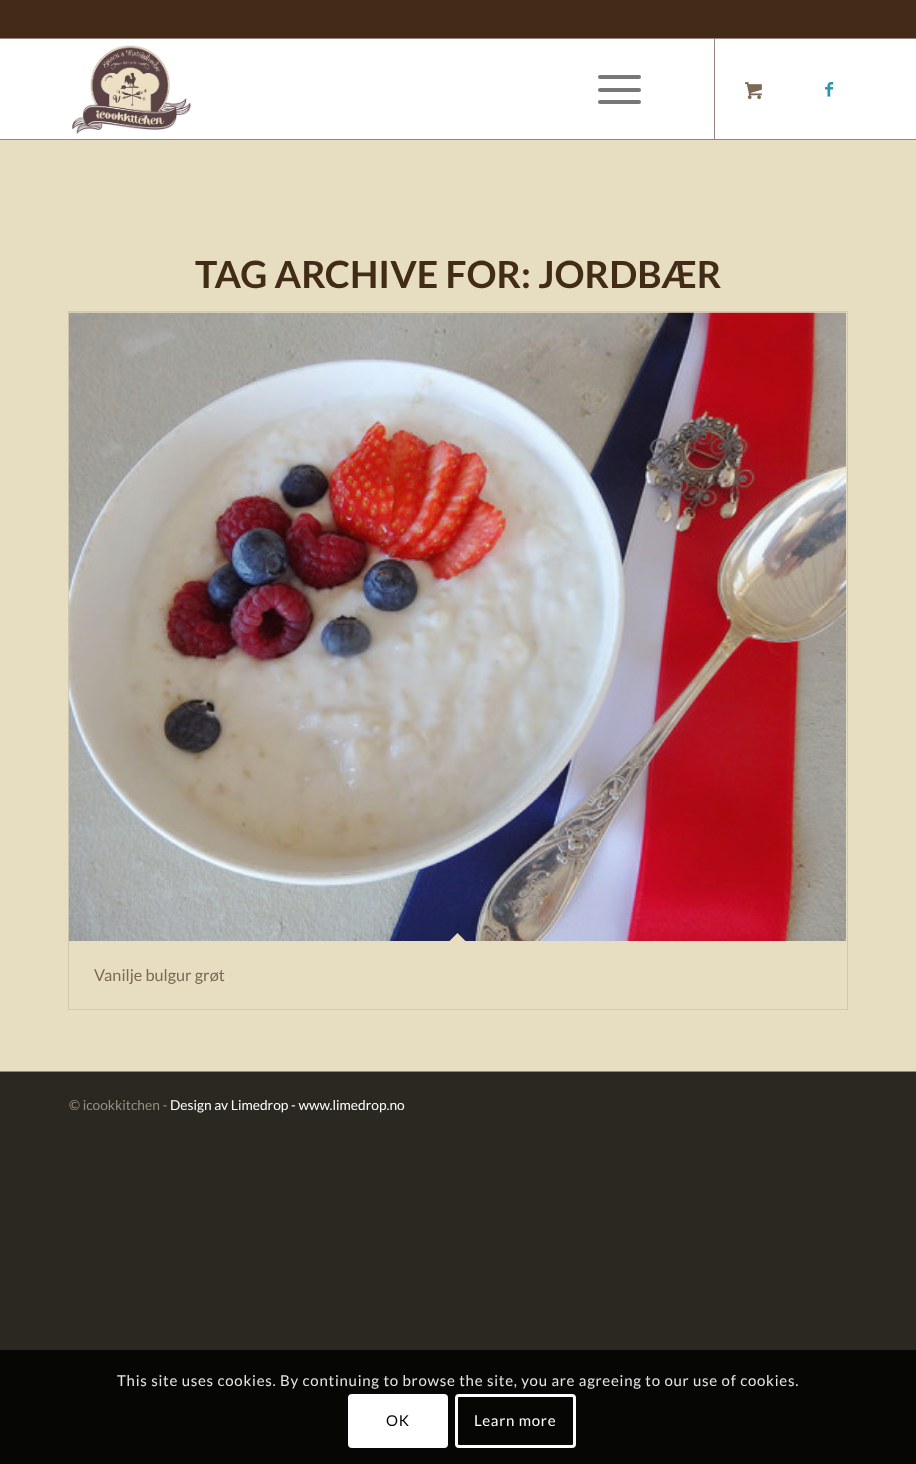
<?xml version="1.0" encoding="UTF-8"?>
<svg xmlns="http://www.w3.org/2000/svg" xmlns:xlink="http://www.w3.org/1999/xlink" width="916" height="1464">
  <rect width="100%" height="100%" fill="#2b2822" />
  <rect width="916" height="38" fill="#422b17" />
  <rect y="38" width="916" height="1" fill="#978380" />
  <rect y="39" width="916" height="100" fill="#ffffff" />
  <rect y="139" width="916" height="1" fill="#978380" />
  <image x="72" y="45" width="119" height="89" xlink:href="image1.png" />
  <rect x="714" y="39" width="1" height="100" fill="#978380" />
  <rect x="598" y="88" width="43" height="4" rx="2" fill="#777777" />
  <rect x="598" y="75" width="43" height="4" rx="2" fill="#777777" />
  <rect x="598" y="100" width="43" height="4" rx="2" fill="#777777" />
  <image x="745" y="82" width="17" height="17" xlink:href="image2.png" />
  <image x="825" y="82" width="9" height="15" xlink:href="image3.png" />
  <rect y="140" width="916" height="931" fill="#e7dec2" />
  <rect x="68.5" y="311.5" width="779" height="698" fill="none" stroke="#d0c8af" />
  <image x="68" y="312" width="779" height="629" xlink:href="image4.png" />
  <path d="M 457.5 933 l 9 9 l -9 9 l -9 -9 z" fill="#e7dec2" />
  <rect y="1071" width="916" height="1" fill="#978380" />
  <rect y="1350" width="916" height="114" fill="#060605" />
  <rect x="348" y="1394" width="100" height="54" rx="4" fill="#ffffff" />
  <rect x="456.5" y="1395.5" width="118" height="51" rx="2.5" fill="none" stroke="#ffffff" stroke-width="3" />
  <text x="195" y="288" style="font-family: Lato; font-size: 37.5px; font-weight: bold; fill: #422b17">TAG ARCHIVE FOR: JORDBÆR</text>
  <text x="94" y="981" style="font-family: Lato; font-size: 16.25px; fill: #7c6853">Vanilje bulgur grøt</text>
  <text x="69" y="1110" style="font-family: Lato; font-size: 13.75px; fill: #988f81">© icookkitchen -</text>
  <text x="170" y="1110" style="font-family: Lato; font-size: 13.75px; fill: #ffffff">Design av Limedrop - www.limedrop.no</text>
  <text x="117" y="1386" style="font-family: Lato; font-size: 15px; letter-spacing: 0.75px; fill: #e6e6e6">This site uses cookies. By continuing to browse the site, you are agreeing to our use of cookies.</text>
  <text x="386" y="1426" style="font-family: Lato; font-size: 15px; letter-spacing: 0.75px; fill: #000000">OK</text>
  <text x="474" y="1426" style="font-family: Lato; font-size: 15px; letter-spacing: 0.75px; fill: #ffffff">Learn more</text>
</svg>
